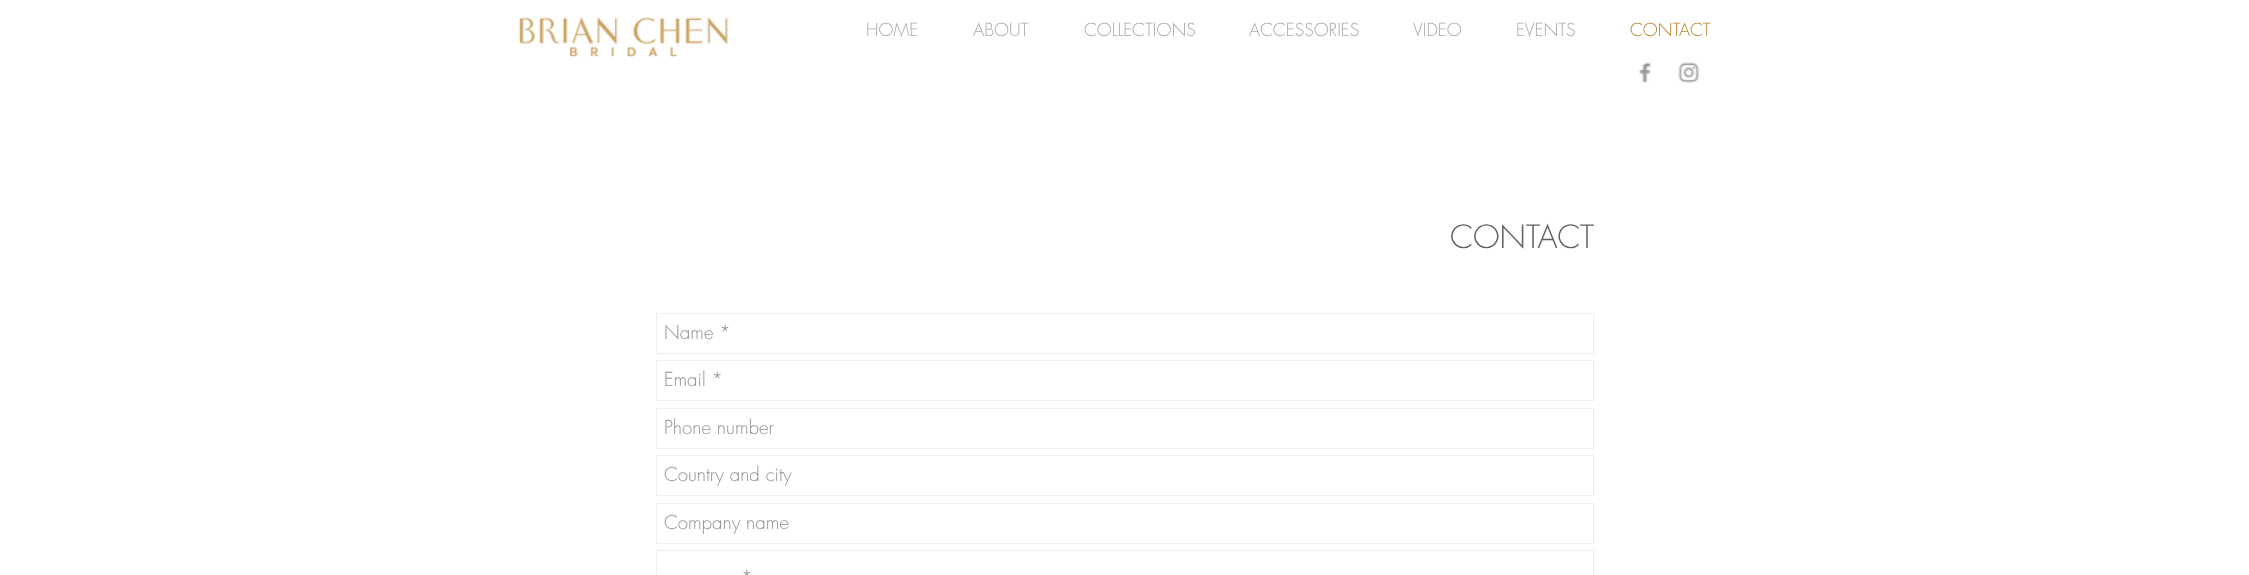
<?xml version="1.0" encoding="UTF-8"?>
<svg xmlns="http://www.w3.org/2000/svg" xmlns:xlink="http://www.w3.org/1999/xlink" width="2249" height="575">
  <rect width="100%" height="100%" fill="#ffffff" />
  <image x="518" y="17" width="210" height="40" xlink:href="image1.png" />
  <image x="1639" y="62" width="12" height="21" xlink:href="image2.png" />
  <image x="1678" y="62" width="22" height="21" xlink:href="image3.png" />
  <rect x="656.5" y="313.5" width="937" height="40" fill="none" stroke="#efefef" />
  <rect x="656.5" y="360.5" width="937" height="40" fill="none" stroke="#efefef" />
  <rect x="656.5" y="408.5" width="937" height="40" fill="none" stroke="#efefef" />
  <rect x="656.5" y="455.5" width="937" height="40" fill="none" stroke="#efefef" />
  <rect x="656.5" y="503.5" width="937" height="40" fill="none" stroke="#efefef" />
  <rect x="656.5" y="550.5" width="937" height="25" fill="none" stroke="#efefef" />
  <text x="866" y="36" style="font-family: futura; font-size: 17.5px; font-weight: 300; fill: #a8a8a8">HOME</text>
  <text x="973" y="36" style="font-family: futura; font-size: 17.5px; font-weight: 300; fill: #a8a8a8">ABOUT</text>
  <text x="1084" y="36" style="font-family: futura; font-size: 17.5px; font-weight: 300; fill: #a8a8a8">COLLECTIONS</text>
  <text x="1249" y="36" style="font-family: futura; font-size: 17.5px; font-weight: 300; fill: #a8a8a8">ACCESSORIES</text>
  <text x="1413" y="36" style="font-family: futura; font-size: 17.5px; font-weight: 300; fill: #a8a8a8">VIDEO</text>
  <text x="1516" y="36" style="font-family: futura; font-size: 17.5px; font-weight: 300; fill: #a8a8a8">EVENTS</text>
  <text x="1630" y="36" style="font-family: futura; font-size: 17.5px; font-weight: 300; fill: #b6862b">CONTACT</text>
  <text x="1450" y="248" style="font-family: futura; font-size: 31.25px; font-weight: 300; fill: #606060">CONTACT</text>
  <text x="664" y="339" style="font-family: futura; font-size: 18.75px; font-weight: 300; fill: #919191">Name *</text>
  <text x="664" y="386" style="font-family: futura; font-size: 18.75px; font-weight: 300; fill: #919191">Email *</text>
  <text x="664" y="434" style="font-family: futura; font-size: 18.75px; font-weight: 300; fill: #919191">Phone number</text>
  <text x="664" y="481" style="font-family: futura; font-size: 18.75px; font-weight: 300; fill: #919191">Country and city</text>
  <text x="664" y="529" style="font-family: futura; font-size: 18.75px; font-weight: 300; fill: #919191">Company name</text>
  <text x="741" y="584" style="font-family: futura; font-size: 18.75px; font-weight: 300; fill: #919191">*</text>
</svg>
